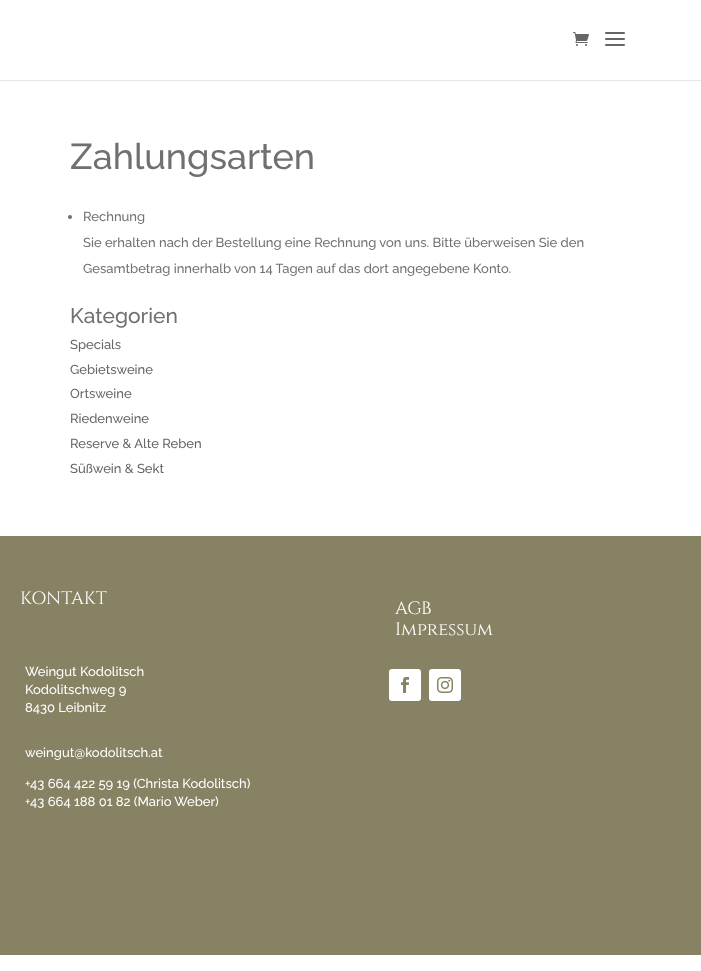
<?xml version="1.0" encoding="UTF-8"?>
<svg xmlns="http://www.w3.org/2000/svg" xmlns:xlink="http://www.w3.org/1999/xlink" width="701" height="971">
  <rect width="100%" height="100%" fill="#ffffff" />
  <rect y="80" width="701" height="1" fill="#e6e6e6" />
  <image x="573" y="32" width="16" height="14" xlink:href="image1.png" />
  <image x="605" y="32" width="20" height="14" xlink:href="image2.png" />
  <circle cx="70" cy="217" r="2" fill="#707070" />
  <rect y="536" width="701" height="419" fill="#878263" />
  <rect x="389" y="669" width="32" height="32" rx="3" fill="#ffffff" />
  <image x="401" y="677" width="8" height="16" xlink:href="image3.png" />
  <rect x="429" y="669" width="32" height="32" rx="3" fill="#ffffff" />
  <image x="437" y="677" width="16" height="16" xlink:href="image4.png" />
  <text x="70" y="169" style="font-family: Raleway; font-size: 36px; font-weight: 500; fill: #707070">Zahlungsarten</text>
  <text x="83" y="221" style="font-family: Raleway; font-size: 13px; font-weight: 500; fill: #707070">Rechnung</text>
  <text x="83" y="247" style="font-family: Raleway; font-size: 13px; font-weight: 500; fill: #707070">Sie erhalten nach der Bestellung eine Rechnung von uns. Bitte überweisen Sie den</text>
  <text x="83" y="273" style="font-family: Raleway; font-size: 13px; font-weight: 500; fill: #707070">Gesamtbetrag innerhalb von 14 Tagen auf das dort angegebene Konto.</text>
  <text x="70" y="323" style="font-family: Raleway; font-size: 21px; font-weight: 500; fill: #707070">Kategorien</text>
  <text x="70" y="349" style="font-family: Raleway; font-size: 13px; font-weight: 500; fill: #666666">Specials</text>
  <text x="70" y="374" style="font-family: Raleway; font-size: 13px; font-weight: 500; fill: #666666">Gebietsweine</text>
  <text x="70" y="398" style="font-family: Raleway; font-size: 13px; font-weight: 500; fill: #666666">Ortsweine</text>
  <text x="70" y="423" style="font-family: Raleway; font-size: 13px; font-weight: 500; fill: #666666">Riedenweine</text>
  <text x="70" y="448" style="font-family: Raleway; font-size: 13px; font-weight: 500; fill: #666666">Reserve &amp; Alte Reben</text>
  <text x="70" y="473" style="font-family: Raleway; font-size: 13px; font-weight: 500; fill: #666666">Süßwein &amp; Sekt</text>
  <text x="20" y="604" style="font-family: Cinzel; font-size: 18px; fill: #ffffff">KONTAKT</text>
  <text x="25" y="676" style="font-family: Raleway; font-size: 13px; font-weight: 500; fill: #ffffff">Weingut Kodolitsch</text>
  <text x="25" y="694" style="font-family: Raleway; font-size: 13px; font-weight: 500; fill: #ffffff">Kodolitschweg 9</text>
  <text x="25" y="712" style="font-family: Raleway; font-size: 13px; font-weight: 500; fill: #ffffff">8430 Leibnitz</text>
  <text x="25" y="757" style="font-family: Raleway; font-size: 13px; font-weight: 500; fill: #ffffff">weingut@kodolitsch.at</text>
  <text x="25" y="788" style="font-family: Raleway; font-size: 13px; font-weight: 500; fill: #ffffff">+43 664 422 59 19 (Christa Kodolitsch)</text>
  <text x="25" y="806" style="font-family: Raleway; font-size: 13px; font-weight: 500; fill: #ffffff">+43 664 188 01 82 (Mario Weber)</text>
  <text x="395" y="614" style="font-family: Cinzel; font-size: 18px; fill: #ffffff">AGB</text>
  <text x="395" y="635" style="font-family: Cinzel; font-size: 18px; fill: #ffffff">Impressum</text>
</svg>
